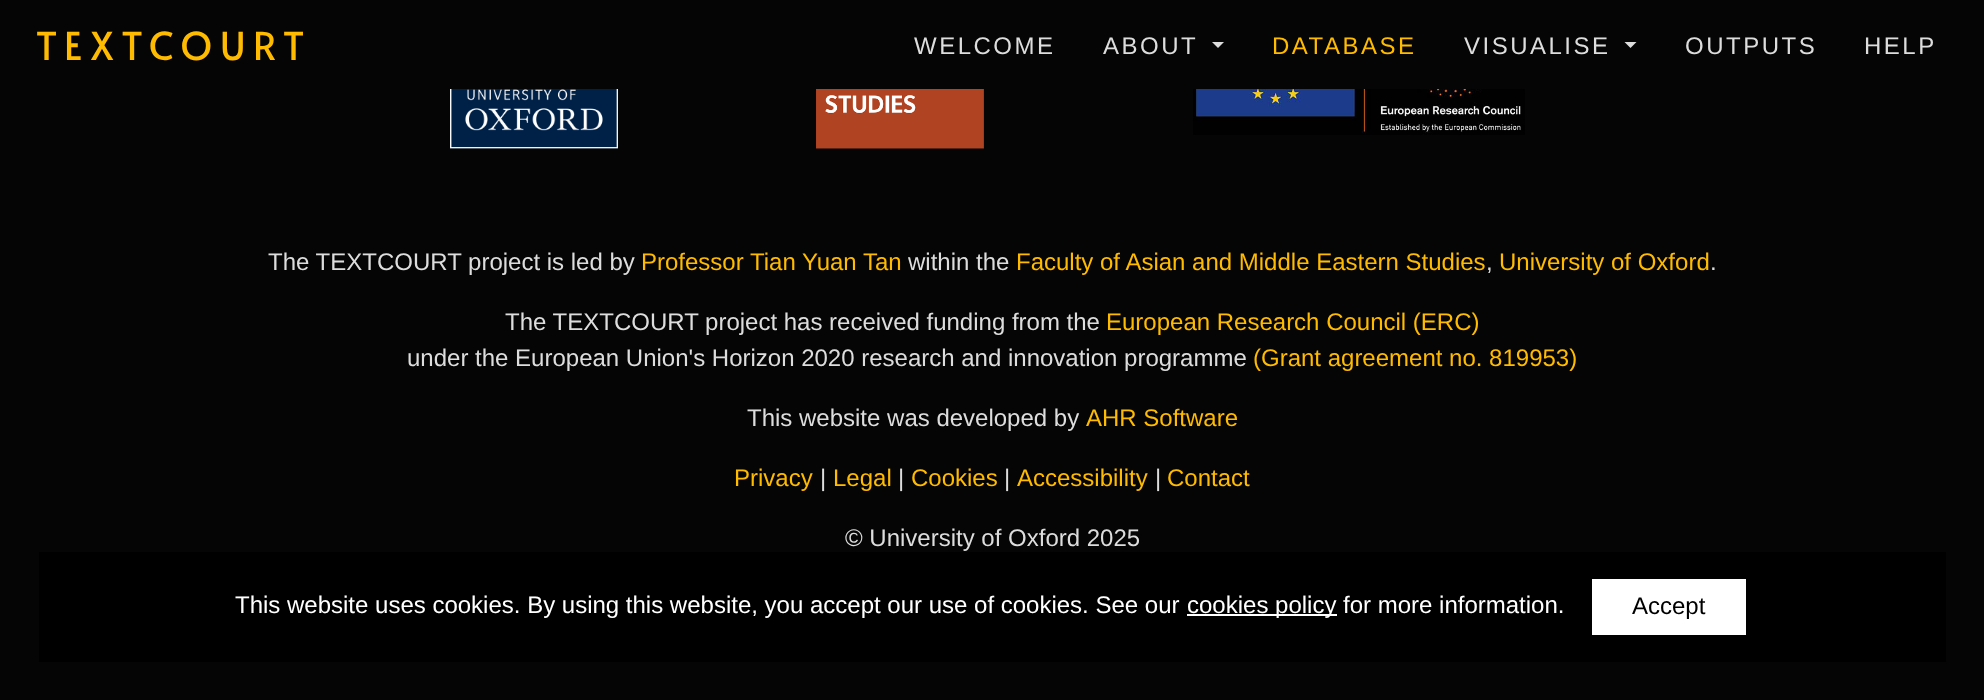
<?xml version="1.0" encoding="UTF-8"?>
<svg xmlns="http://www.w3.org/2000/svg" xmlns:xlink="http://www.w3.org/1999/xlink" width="1984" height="700">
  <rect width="100%" height="100%" fill="#050505" />
  <path d="M 1212 42 h 12 l -6 6 z" fill="#dddddd" />
  <path d="M 1624.5 42 h 12 l -6 6 z" fill="#dddddd" />
  <image x="450" y="89" width="168" height="60" xlink:href="image1.png" />
  <image x="816" y="89" width="168" height="60" xlink:href="image2.png" />
  <image x="1193" y="89" width="332" height="46" xlink:href="image3.png" />
  <rect x="39" y="552" width="1907" height="110" fill="#000000" />
  <rect x="1187" y="614" width="150" height="2" fill="#ffffff" />
  <rect x="1592" y="579" width="154" height="56" fill="#ffffff" />
  <text x="36" y="60" style="font-family: Alata; font-size: 38.5px; letter-spacing: 7.75px; fill: #ffbb00">TEXTCOURT</text>
  <text x="914" y="54" style="font-family: Liberation Sans; font-size: 24px; letter-spacing: 2.5px; fill: #dddddd">WELCOME</text>
  <text x="1103" y="54" style="font-family: Liberation Sans; font-size: 24px; letter-spacing: 2.5px; fill: #dddddd">ABOUT</text>
  <text x="1272" y="54" style="font-family: Liberation Sans; font-size: 24px; letter-spacing: 2.5px; fill: #ffbb00">DATABASE</text>
  <text x="1464" y="54" style="font-family: Liberation Sans; font-size: 24px; letter-spacing: 2.5px; fill: #dddddd">VISUALISE</text>
  <text x="1685" y="54" style="font-family: Liberation Sans; font-size: 24px; letter-spacing: 2.5px; fill: #dddddd">OUTPUTS</text>
  <text x="1864" y="54" style="font-family: Liberation Sans; font-size: 24px; letter-spacing: 2.5px; fill: #dddddd">HELP</text>
  <text x="268" y="270" style="font-family: Liberation Sans; font-size: 24px; fill: #dddddd">The TEXTCOURT project is led by</text>
  <text x="641" y="270" style="font-family: Liberation Sans; font-size: 24px; fill: #ffbb00">Professor Tian Yuan Tan</text>
  <text x="908" y="270" style="font-family: Liberation Sans; font-size: 24px; fill: #dddddd">within the</text>
  <text x="1016" y="270" style="font-family: Liberation Sans; font-size: 24px; fill: #ffbb00">Faculty of Asian and Middle Eastern Studies</text>
  <text x="1486" y="270" style="font-family: Liberation Sans; font-size: 24px; fill: #dddddd">,</text>
  <text x="1499" y="270" style="font-family: Liberation Sans; font-size: 24px; fill: #ffbb00">University of Oxford</text>
  <text x="1710" y="270" style="font-family: Liberation Sans; font-size: 24px; fill: #dddddd">.</text>
  <text x="505" y="330" style="font-family: Liberation Sans; font-size: 24px; fill: #dddddd">The TEXTCOURT project has received funding from the</text>
  <text x="1106" y="330" style="font-family: Liberation Sans; font-size: 24px; fill: #ffbb00">European Research Council (ERC)</text>
  <text x="407" y="366" style="font-family: Liberation Sans; font-size: 24px; fill: #dddddd">under the European Union's Horizon 2020 research and innovation programme</text>
  <text x="1253" y="366" style="font-family: Liberation Sans; font-size: 24px; fill: #ffbb00">(Grant agreement no. 819953)</text>
  <text x="747" y="426" style="font-family: Liberation Sans; font-size: 24px; fill: #dddddd">This website was developed by</text>
  <text x="1086" y="426" style="font-family: Liberation Sans; font-size: 24px; fill: #ffbb00">AHR Software</text>
  <text x="734" y="486" style="font-family: Liberation Sans; font-size: 24px; fill: #ffbb00">Privacy</text>
  <text x="820" y="486" style="font-family: Liberation Sans; font-size: 24px; fill: #dddddd">|</text>
  <text x="833" y="486" style="font-family: Liberation Sans; font-size: 24px; fill: #ffbb00">Legal</text>
  <text x="898" y="486" style="font-family: Liberation Sans; font-size: 24px; fill: #dddddd">|</text>
  <text x="911" y="486" style="font-family: Liberation Sans; font-size: 24px; fill: #ffbb00">Cookies</text>
  <text x="1004" y="486" style="font-family: Liberation Sans; font-size: 24px; fill: #dddddd">|</text>
  <text x="1017" y="486" style="font-family: Liberation Sans; font-size: 24px; fill: #ffbb00">Accessibility</text>
  <text x="1155" y="486" style="font-family: Liberation Sans; font-size: 24px; fill: #dddddd">|</text>
  <text x="1167" y="486" style="font-family: Liberation Sans; font-size: 24px; fill: #ffbb00">Contact</text>
  <text x="845" y="546" style="font-family: Liberation Sans; font-size: 24px; fill: #dddddd">© University of Oxford 2025</text>
  <text x="235" y="613" style="font-family: Liberation Sans; font-size: 24px; fill: #ffffff">This website uses cookies. By using this website, you accept our use of cookies. See our</text>
  <text x="1187" y="613" style="font-family: Liberation Sans; font-size: 24px; fill: #ffffff">cookies policy for more information.</text>
  <text x="1632" y="614" style="font-family: Liberation Sans; font-size: 24px; fill: #000000">Accept</text>
</svg>
